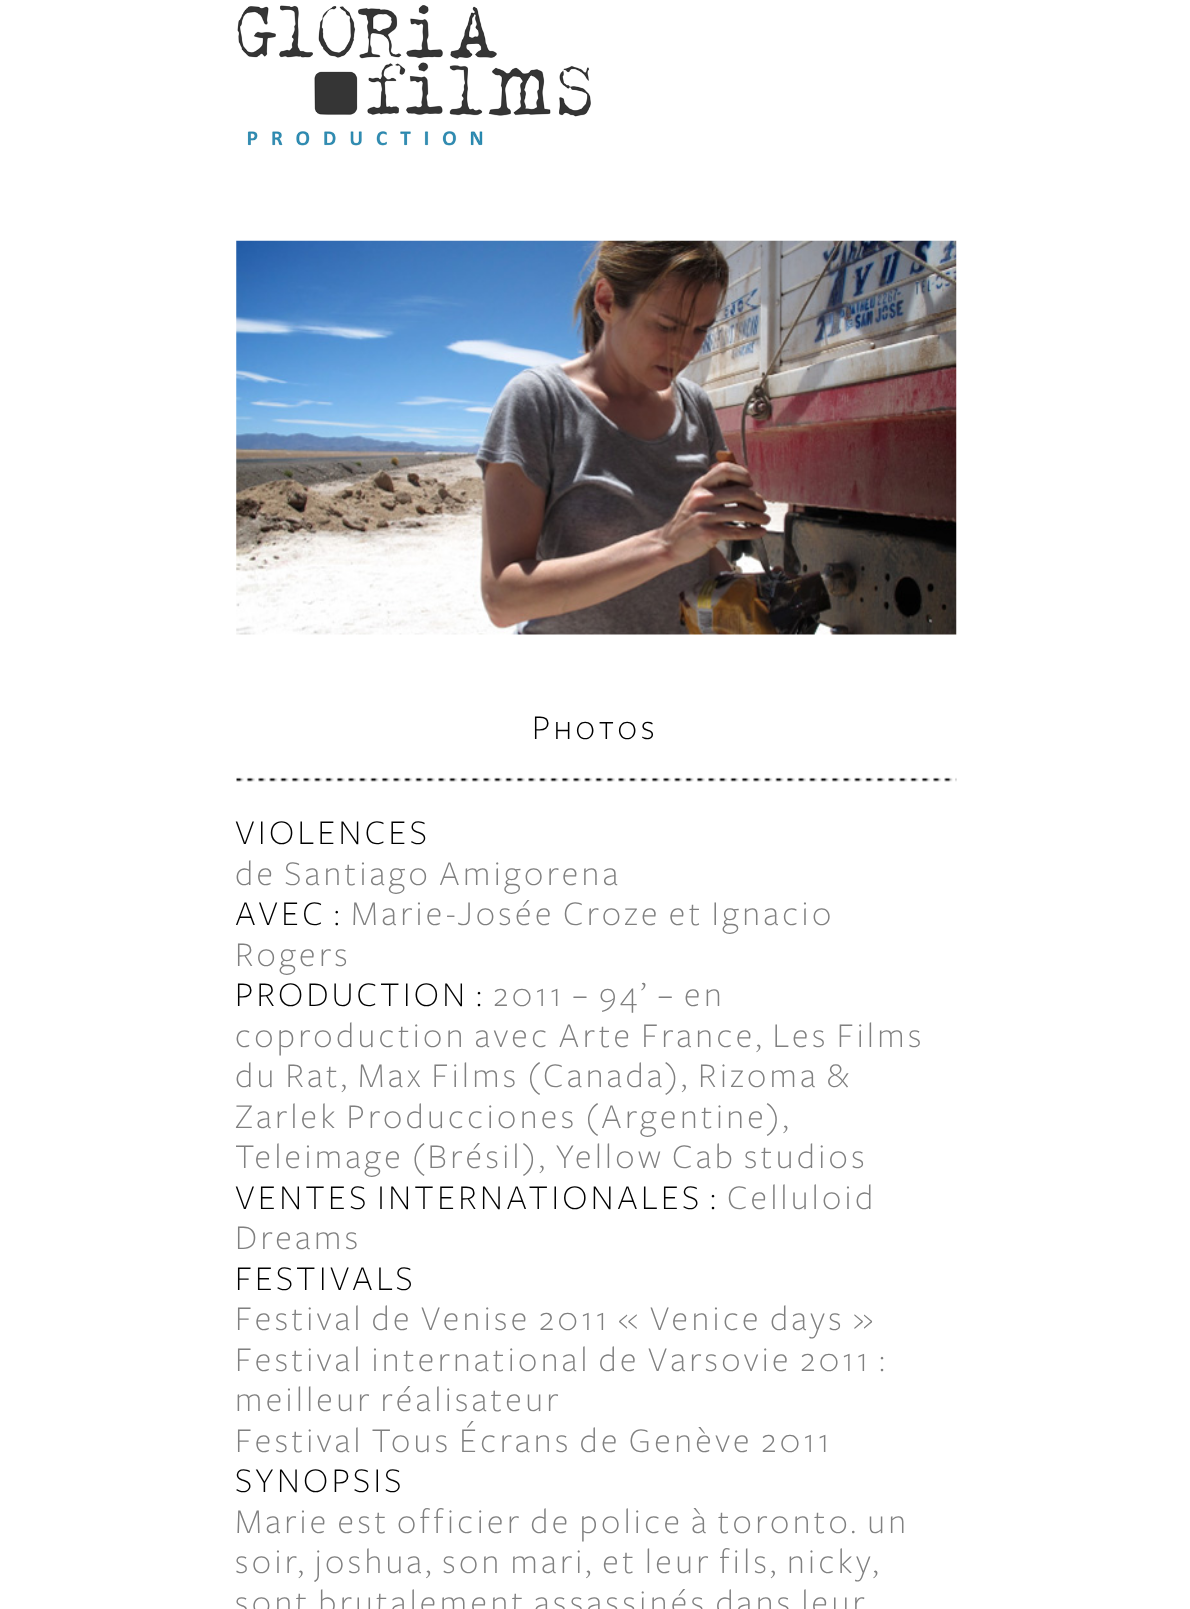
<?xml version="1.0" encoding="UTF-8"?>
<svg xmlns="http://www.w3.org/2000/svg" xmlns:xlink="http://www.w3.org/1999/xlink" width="1190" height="1609">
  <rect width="100%" height="100%" fill="#ffffff" />
  <image x="237" y="5" width="354" height="141" xlink:href="image1.png" />
  <image x="236" y="240" width="721" height="395" xlink:href="image2.png" />
  <image x="236" y="777" width="721" height="5" xlink:href="image3.png" />
  <text x="532" y="739" style="font-family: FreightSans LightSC; font-size: 36px; font-weight: 300; letter-spacing: 3.4px; fill: #000000">Photos</text>
  <text x="235" y="844" style="font-family: FreightSans LightSC; font-size: 36px; font-weight: 300; letter-spacing: 3.4px; fill: #000000">VIOLENCES</text>
  <text x="235" y="885" style="font-family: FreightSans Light; font-size: 36px; font-weight: 300; letter-spacing: 3.4px; fill: #808080">de Santiago Amigorena</text>
  <text x="235" y="925" style="font-family: FreightSans LightSC; font-size: 36px; font-weight: 300; letter-spacing: 3.4px; fill: #000000">AVEC :</text>
  <text x="351" y="925" style="font-family: FreightSans Light; font-size: 36px; font-weight: 300; letter-spacing: 3.4px; fill: #808080">Marie-Josée Croze et Ignacio</text>
  <text x="235" y="966" style="font-family: FreightSans Light; font-size: 36px; font-weight: 300; letter-spacing: 3.4px; fill: #808080">Rogers</text>
  <text x="235" y="1006" style="font-family: FreightSans LightSC; font-size: 36px; font-weight: 300; letter-spacing: 3.4px; fill: #000000">PRODUCTION :</text>
  <text x="493" y="1006" style="font-family: FreightSans Light; font-size: 36px; font-weight: 300; letter-spacing: 3.4px; fill: #808080">2011 – 94’ – en</text>
  <text x="235" y="1047" style="font-family: FreightSans Light; font-size: 36px; font-weight: 300; letter-spacing: 3.4px; fill: #808080">coproduction avec Arte France, Les Films</text>
  <text x="235" y="1087" style="font-family: FreightSans Light; font-size: 36px; font-weight: 300; letter-spacing: 3.4px; fill: #808080">du Rat, Max Films (Canada), Rizoma &amp;</text>
  <text x="235" y="1128" style="font-family: FreightSans Light; font-size: 36px; font-weight: 300; letter-spacing: 3.4px; fill: #808080">Zarlek Producciones (Argentine),</text>
  <text x="235" y="1168" style="font-family: FreightSans Light; font-size: 36px; font-weight: 300; letter-spacing: 3.4px; fill: #808080">Teleimage (Brésil), Yellow Cab studios</text>
  <text x="235" y="1209" style="font-family: FreightSans LightSC; font-size: 36px; font-weight: 300; letter-spacing: 3.4px; fill: #000000">VENTES INTERNATIONALES :</text>
  <text x="727" y="1209" style="font-family: FreightSans Light; font-size: 36px; font-weight: 300; letter-spacing: 3.4px; fill: #808080">Celluloid</text>
  <text x="235" y="1249" style="font-family: FreightSans Light; font-size: 36px; font-weight: 300; letter-spacing: 3.4px; fill: #808080">Dreams</text>
  <text x="235" y="1290" style="font-family: FreightSans LightSC; font-size: 36px; font-weight: 300; letter-spacing: 3.4px; fill: #000000">FESTIVALS</text>
  <text x="235" y="1330" style="font-family: FreightSans Light; font-size: 36px; font-weight: 300; letter-spacing: 3.4px; fill: #808080">Festival de Venise 2011 « Venice days »</text>
  <text x="235" y="1371" style="font-family: FreightSans Light; font-size: 36px; font-weight: 300; letter-spacing: 3.4px; fill: #808080">Festival international de Varsovie 2011 :</text>
  <text x="235" y="1411" style="font-family: FreightSans Light; font-size: 36px; font-weight: 300; letter-spacing: 3.4px; fill: #808080">meilleur réalisateur</text>
  <text x="235" y="1452" style="font-family: FreightSans Light; font-size: 36px; font-weight: 300; letter-spacing: 3.4px; fill: #808080">Festival Tous Écrans de Genève 2011</text>
  <text x="235" y="1492" style="font-family: FreightSans LightSC; font-size: 36px; font-weight: 300; letter-spacing: 3.4px; fill: #000000">SYNOPSIS</text>
  <text x="235" y="1533" style="font-family: FreightSans Light; font-size: 36px; font-weight: 300; letter-spacing: 3.4px; fill: #808080">Marie est officier de police à toronto. un</text>
  <text x="235" y="1573" style="font-family: FreightSans Light; font-size: 36px; font-weight: 300; letter-spacing: 3.4px; fill: #808080">soir, joshua, son mari, et leur fils, nicky,</text>
  <text x="235" y="1614" style="font-family: FreightSans Light; font-size: 36px; font-weight: 300; letter-spacing: 3.4px; fill: #808080">sont brutalement assassinés dans leur</text>
</svg>
